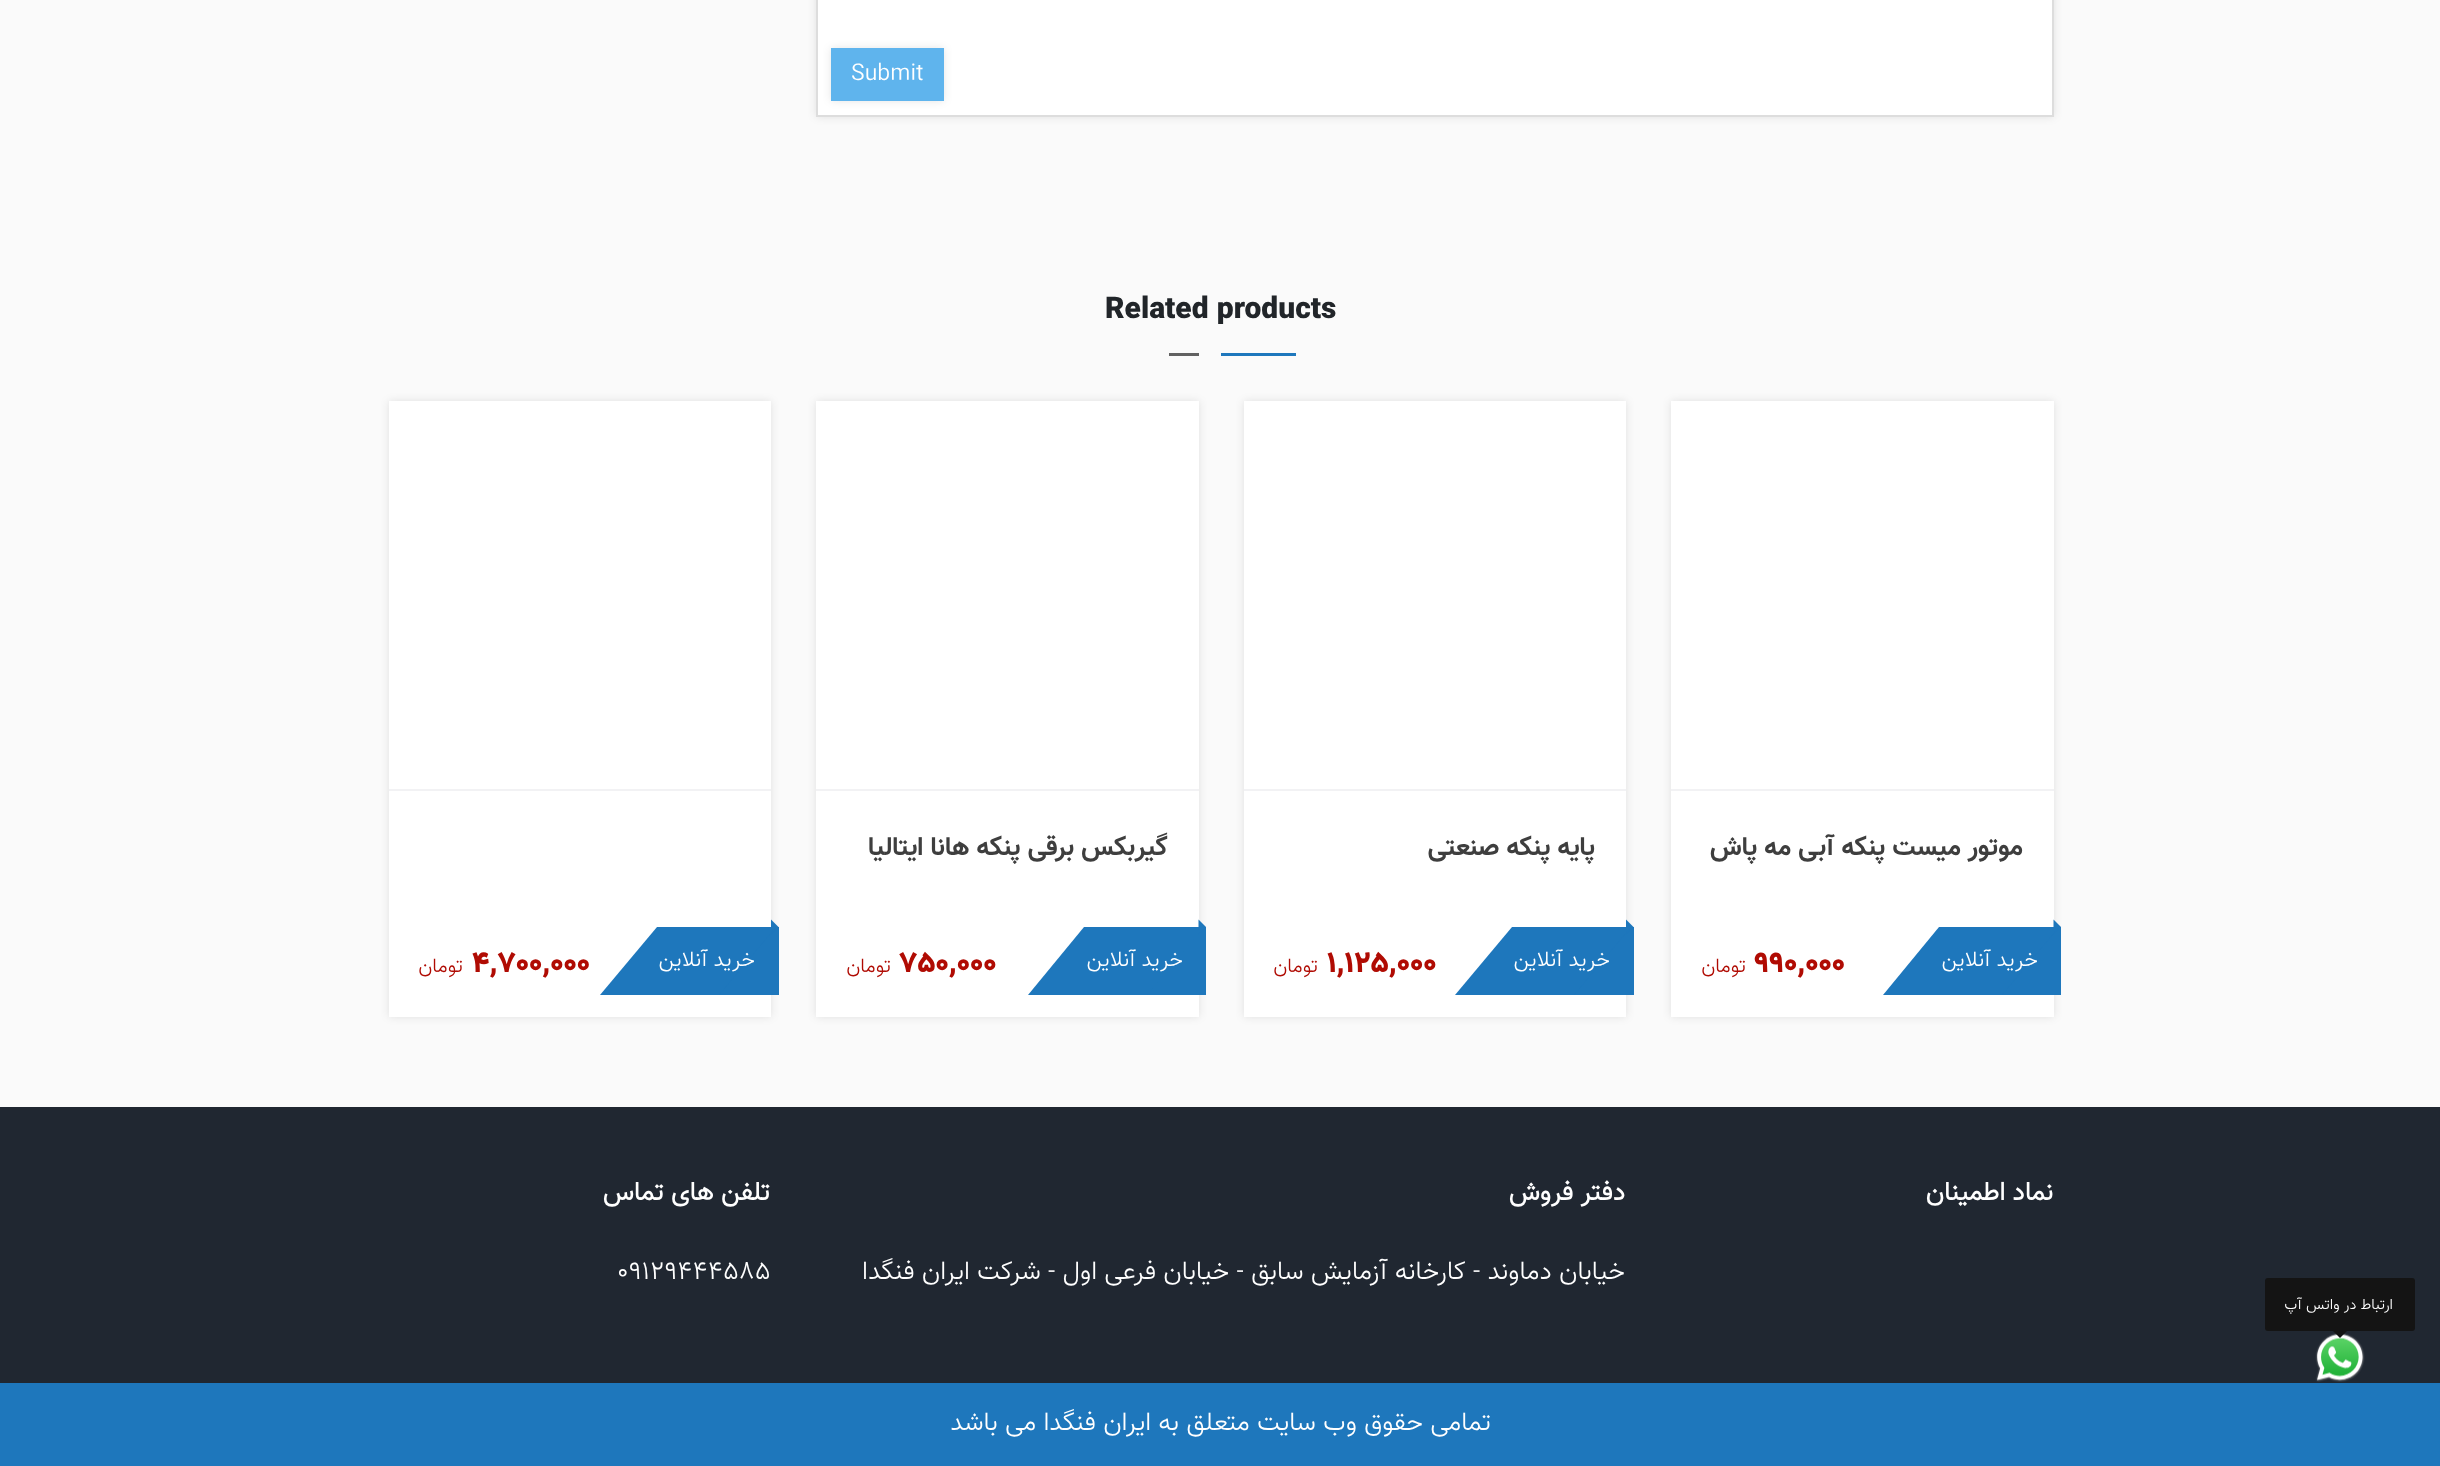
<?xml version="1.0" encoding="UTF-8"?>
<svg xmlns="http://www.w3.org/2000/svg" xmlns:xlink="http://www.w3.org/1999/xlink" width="2440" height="1466">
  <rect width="100%" height="100%" fill="#fafafa" />
  <rect x="816" y="-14" width="1238" height="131" fill="#000000" fill-opacity="0.1" filter="blur(4.5px)" />
  <rect x="817" y="-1" width="1236" height="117" fill="#ffffff" stroke="#dddddd" stroke-width="2" />
  <rect x="831" y="48" width="113" height="53" fill="#000000" fill-opacity="0.1" filter="blur(4.5px)" />
  <rect x="831" y="48" width="113" height="53" fill="#5fb4ed" />
  <rect x="1221" y="353" width="75" height="3" fill="#1e77bc" />
  <rect x="1169" y="353" width="30" height="3" fill="#616161" />
  <rect x="1671" y="401" width="383" height="616" fill="#000000" fill-opacity="0.1" filter="blur(4.5px)" />
  <rect x="1671" y="401" width="383" height="616" fill="#ffffff" />
  <rect x="1671" y="789" width="383" height="2" fill="#f2f2f4" />
  <rect x="2002" y="927" width="59" height="68" fill="#1e77bc" />
  <path d="M 2053.5 934.5 v -15 l 7.5 7.5 z" fill="#1e77bc" />
  <path d="M 1939 927 h 120 l -57 68 h -119 z" fill="#1e77bc" />
  <rect x="1244" y="401" width="382" height="616" fill="#000000" fill-opacity="0.1" filter="blur(4.5px)" />
  <rect x="1244" y="401" width="382" height="616" fill="#ffffff" />
  <rect x="1244" y="789" width="382" height="2" fill="#f2f2f4" />
  <rect x="1574" y="927" width="60" height="68" fill="#1e77bc" />
  <path d="M 1626 934.5 v -15 l 7.5 7.5 z" fill="#1e77bc" />
  <path d="M 1512 927 h 119 l -57 68 h -119 z" fill="#1e77bc" />
  <rect x="816" y="401" width="383" height="616" fill="#000000" fill-opacity="0.1" filter="blur(4.5px)" />
  <rect x="816" y="401" width="383" height="616" fill="#ffffff" />
  <rect x="816" y="789" width="383" height="2" fill="#f2f2f4" />
  <rect x="1147" y="927" width="59" height="68" fill="#1e77bc" />
  <path d="M 1198.5 934.5 v -15 l 7.5 7.5 z" fill="#1e77bc" />
  <path d="M 1084 927 h 120 l -57 68 h -119 z" fill="#1e77bc" />
  <rect x="389" y="401" width="382" height="616" fill="#000000" fill-opacity="0.1" filter="blur(4.5px)" />
  <rect x="389" y="401" width="382" height="616" fill="#ffffff" />
  <rect x="389" y="789" width="382" height="2" fill="#f2f2f4" />
  <rect x="719" y="927" width="60" height="68" fill="#1e77bc" />
  <path d="M 771 934.5 v -15 l 7.5 7.5 z" fill="#1e77bc" />
  <path d="M 657 927 h 119 l -57 68 h -119 z" fill="#1e77bc" />
  <rect y="1107" width="2440" height="276" fill="#202731" />
  <rect x="2265" y="1278" width="150" height="53" rx="3" fill="#141414" />
  <image x="2315" y="1333" width="50" height="49" xlink:href="image1.png" />
  <path d="M 2332.5 1330.5 h 15 l -7.5 7.5 z" fill="#141414" />
  <rect y="1383" width="2440" height="83" fill="#1e77bc" />
  <text x="851" y="80" style="font-family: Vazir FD; font-size: 23px; font-weight: 300; fill: #ffffff">Submit</text>
  <text x="1105" y="318" style="font-family: Vazir FD; font-size: 30px; font-weight: 900; fill: #212529">Related products</text>
  <text x="2023" y="855" style="font-family: Vazir FD; font-size: 26.4px; font-weight: bold; direction: rtl; fill: #3e3e3e">موتور میست پنکه آبی مه پاش</text>
  <text x="2038" y="966" style="font-family: Vazir FD; font-size: 21.5px; font-weight: 300; direction: rtl; fill: #ffffff">خرید آنلاین</text>
  <text x="1754" y="972" style="font-family: Vazir FD; font-size: 30px; font-weight: 900; fill: #b00b03">990,000</text>
  <text x="1746" y="972" style="font-family: Vazir FD; font-size: 20px; font-weight: 300; direction: rtl; fill: #b00b03">تومان</text>
  <text x="1595" y="855" style="font-family: Vazir FD; font-size: 26.4px; font-weight: bold; direction: rtl; fill: #3e3e3e">پایه پنکه صنعتی</text>
  <text x="1610" y="966" style="font-family: Vazir FD; font-size: 21.5px; font-weight: 300; direction: rtl; fill: #ffffff">خرید آنلاین</text>
  <text x="1327" y="972" style="font-family: Vazir FD; font-size: 30px; font-weight: 900; fill: #b00b03">1,125,000</text>
  <text x="1318" y="972" style="font-family: Vazir FD; font-size: 20px; font-weight: 300; direction: rtl; fill: #b00b03">تومان</text>
  <text x="1168" y="855" style="font-family: Vazir FD; font-size: 26.4px; font-weight: bold; direction: rtl; fill: #3e3e3e">گیربکس برقی پنکه هانا ایتالیا</text>
  <text x="1183" y="966" style="font-family: Vazir FD; font-size: 21.5px; font-weight: 300; direction: rtl; fill: #ffffff">خرید آنلاین</text>
  <text x="899" y="972" style="font-family: Vazir FD; font-size: 30px; font-weight: 900; fill: #b00b03">750,000</text>
  <text x="891" y="972" style="font-family: Vazir FD; font-size: 20px; font-weight: 300; direction: rtl; fill: #b00b03">تومان</text>
  <text x="755" y="966" style="font-family: Vazir FD; font-size: 21.5px; font-weight: 300; direction: rtl; fill: #ffffff">خرید آنلاین</text>
  <text x="472" y="972" style="font-family: Vazir FD; font-size: 30px; font-weight: 900; fill: #b00b03">4,700,000</text>
  <text x="463" y="972" style="font-family: Vazir FD; font-size: 20px; font-weight: 300; direction: rtl; fill: #b00b03">تومان</text>
  <text x="2393" y="1309" style="font-family: Vazir FD; font-size: 15px; font-weight: 300; direction: rtl; fill: #ffffff">ارتباط در واتس آپ</text>
  <text x="2053" y="1200" style="font-family: 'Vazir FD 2'; font-size: 26.15px; font-weight: bold; direction: rtl; fill: #ffffff">نماد اطمینان</text>
  <text x="1625" y="1200" style="font-family: 'Vazir FD 2'; font-size: 26.15px; font-weight: bold; direction: rtl; fill: #ffffff">دفتر فروش</text>
  <text x="1625" y="1279" style="font-family: Vazir FD; font-size: 26.15px; font-weight: 300; direction: rtl; fill: #ffffff">خیابان دماوند - کارخانه آزمایش سابق - خیابان فرعی اول - شرکت ایران فنگدا</text>
  <text x="770" y="1200" style="font-family: 'Vazir FD 2'; font-size: 26.15px; font-weight: bold; direction: rtl; fill: #ffffff">تلفن های تماس</text>
  <text x="617" y="1279" style="font-family: Vazir FD; font-size: 26.15px; font-weight: 300; fill: #ffffff">09129444585</text>
  <text x="1491" y="1430" style="font-family: Vazir FD; font-size: 26.15px; font-weight: 300; direction: rtl; fill: #ffffff">تمامی حقوق وب سایت متعلق به ایران فنگدا می باشد</text>
</svg>
